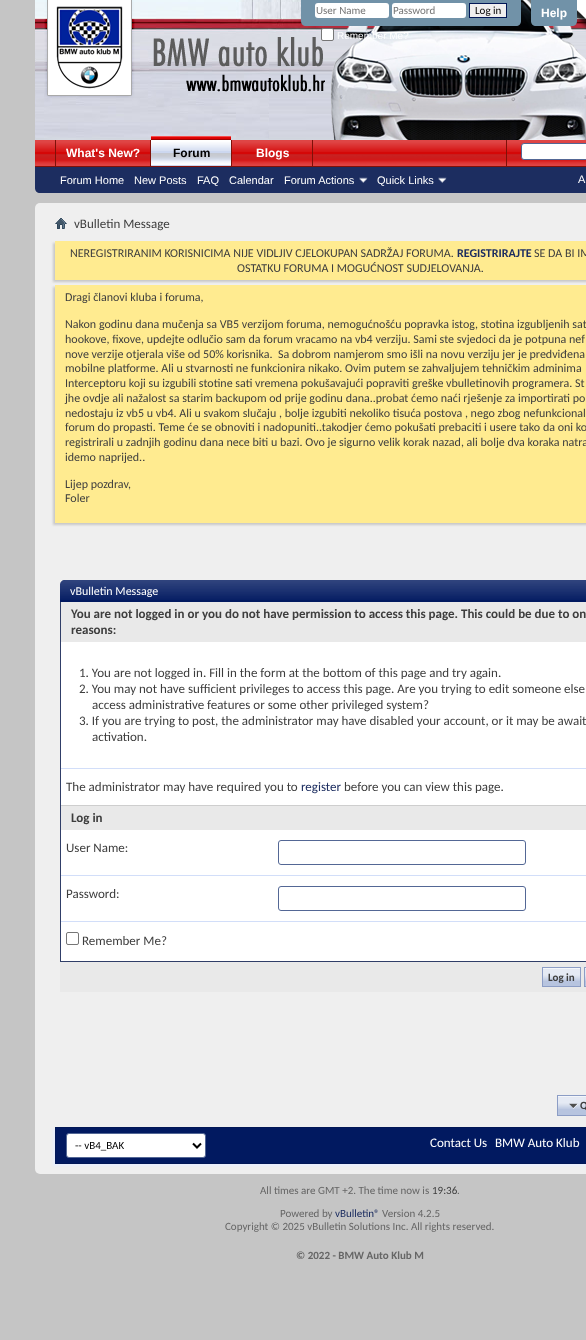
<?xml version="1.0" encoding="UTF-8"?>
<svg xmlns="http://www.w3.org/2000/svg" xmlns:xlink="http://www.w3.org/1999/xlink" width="586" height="1340">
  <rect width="100%" height="100%" fill="#c5c5c5" />
  <image x="35" y="0" width="551" height="140" xlink:href="image1.png" />
  <path d="M 301 0 h 220 v 21 c 0 3 -2 5 -5 5 h -210 c -3 0 -5 -2 -5 -5 z" fill="#7192a8" />
  <rect x="315" y="3" width="74" height="15" rx="3" fill="#ffffff" />
  <rect x="392" y="3" width="74" height="15" rx="3" fill="#ffffff" />
  <rect x="469.5" y="3.5" width="37" height="14" fill="#efefef" stroke="#011756" />
  <rect x="321.5" y="28.5" width="12" height="12" rx="1.5" fill="#ffffff" stroke="#767676" />
  <path d="M 531 0 h 46 v 21 c 0 3 -2 5 -5 5 h -36 c -3 0 -5 -2 -5 -5 z" fill="#7192a8" />
  <path d="M 35 140 h 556 v 48 c 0 3 -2 5 -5 5 h -546 c -3 0 -5 -2 -5 -5 z" fill="#1c2d60" />
  <rect x="35" y="140" width="551" height="26" fill="#d50707" />
  <image x="35" y="140" width="551" height="26" xlink:href="image2.png" />
  <rect x="150" y="140" width="1" height="26" fill="#801008" />
  <rect x="55" y="140" width="1" height="26" fill="#801008" />
  <rect x="56" y="140" width="94" height="26" fill="#d50707" />
  <image x="56" y="140" width="94" height="26" xlink:href="image3.png" />
  <rect x="231" y="140" width="1" height="26" fill="#801008" />
  <rect x="151" y="141" width="80" height="25" fill="#ccd7ef" />
  <image x="151" y="136" width="80" height="29" xlink:href="image4.png" />
  <rect x="312" y="140" width="1" height="26" fill="#801008" />
  <rect x="232" y="140" width="80" height="26" fill="#d50707" />
  <image x="232" y="140" width="80" height="26" xlink:href="image5.png" />
  <rect x="35" y="166" width="551" height="1" fill="#801008" />
  <image x="359" y="177" width="9" height="6" xlink:href="image6.png" />
  <image x="438" y="177" width="9" height="6" xlink:href="image6.png" />
  <rect x="506" y="140" width="1" height="26" fill="#801008" />
  <rect x="521.5" y="143.5" width="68" height="16" rx="2.5" fill="#ffffff" stroke="#536795" />
  <rect x="35" y="203" width="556" height="971" rx="5" fill="#efefef" />
  <image x="55" y="218" width="12" height="11" xlink:href="image7.png" />
  <rect x="53" y="243" width="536" height="39" fill="#c8c8c8" filter="blur(1px)" />
  <rect x="55" y="241" width="531" height="39" fill="#ffeb90" />
  <rect x="53" y="287" width="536" height="238" fill="#c8c8c8" filter="blur(1px)" />
  <rect x="55" y="285" width="531" height="238" fill="#ffeb90" />
  <path d="M 65 580 h 521 c 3 0 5 2 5 5 v 17 h -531 v -17 c 0 -3 2 -5 5 -5 z" fill="#011960" />
  <image x="60" y="580" width="526" height="20" xlink:href="image8.png" />
  <rect x="61" y="602" width="525" height="228" fill="#e9e9e9" />
  <rect x="60" y="961" width="526" height="1" fill="#303e68" />
  <rect x="60" y="602" width="1" height="360" fill="#303e68" />
  <rect x="61" y="642" width="525" height="126" fill="#ffffff" />
  <rect x="61" y="769" width="525" height="36" fill="#ffffff" />
  <rect x="61" y="768" width="525" height="1" fill="#d2def9" />
  <rect x="61" y="805" width="525" height="1" fill="#cecece" />
  <rect x="61" y="830" width="525" height="45" fill="#ffffff" />
  <rect x="278.5" y="840.5" width="247" height="24" rx="2.5" fill="none" stroke="#536795" />
  <rect x="61" y="876" width="525" height="45" fill="#ffffff" />
  <rect x="61" y="875" width="525" height="1" fill="#d2def9" />
  <rect x="278.5" y="886.5" width="247" height="24" rx="2.5" fill="none" stroke="#536795" />
  <rect x="61" y="922" width="525" height="39" fill="#ffffff" />
  <rect x="61" y="921" width="525" height="1" fill="#d2def9" />
  <rect x="66.5" y="932.5" width="12" height="12" rx="1.5" fill="none" stroke="#767676" />
  <rect x="60" y="962" width="526" height="30" fill="#e9e9e9" />
  <rect x="543" y="968" width="37" height="18" fill="#b7c4df" />
  <image x="543" y="968" width="37" height="13" xlink:href="image9.png" />
  <rect x="542.5" y="967.5" width="38" height="19" fill="none" stroke="#8c9dc5" />
  <rect x="585" y="967" width="1" height="20" fill="#b7c4df" />
  <image x="585" y="968" width="1" height="13" xlink:href="image10.png" />
  <rect x="584.5" y="967.5" width="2" height="19" fill="none" stroke="#8c9dc5" />
  <rect x="558" y="1096" width="28" height="19" fill="#b7c4df" />
  <image x="558" y="1096" width="28" height="13" xlink:href="image11.png" />
  <rect x="557.5" y="1095.5" width="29" height="20" fill="none" stroke="#8c9dc5" />
  <image x="569" y="1103" width="9" height="6" xlink:href="image12.png" />
  <rect x="53" y="1129" width="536" height="37" fill="#e8eefd" filter="blur(1px)" />
  <rect x="55.5" y="1127.5" width="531" height="36" fill="#011960" stroke="#011756" />
  <rect x="66.5" y="1133.5" width="139" height="24" rx="2.5" fill="#ffffff" stroke="#536795" />
  <path d="M 193 1143.5 l 4 4 l 4 -4" fill="none" stroke="#000000" stroke-width="2" />
  <text x="316" y="14" style="font-family: Carlito; font-size: 11px; fill: #777777">User Name</text>
  <text x="393" y="14" style="font-family: Carlito; font-size: 11px; fill: #777777">Password</text>
  <text x="475" y="14" style="font-family: Carlito; font-size: 11px; fill: #000000">Log in</text>
  <text x="337" y="39" style="font-family: Liberation Sans; font-size: 10px; fill: #ffffff">Remember Me?</text>
  <text x="541" y="17" style="font-family: Liberation Sans; font-size: 12px; font-weight: bold; fill: #ffffff">Help</text>
  <text x="66" y="157" style="font-family: Liberation Sans; font-size: 12px; font-weight: bold; fill: #ffffff">What's New?</text>
  <text x="173" y="157" style="font-family: Liberation Sans; font-size: 12px; font-weight: bold; fill: #000000">Forum</text>
  <text x="256" y="157" style="font-family: Liberation Sans; font-size: 12px; font-weight: bold; fill: #ffffff">Blogs</text>
  <text x="60" y="184" style="font-family: Liberation Sans; font-size: 11px; fill: #ffffff">Forum Home</text>
  <text x="134" y="184" style="font-family: Liberation Sans; font-size: 11px; fill: #ffffff">New Posts</text>
  <text x="197" y="184" style="font-family: Liberation Sans; font-size: 11px; fill: #ffffff">FAQ</text>
  <text x="229" y="184" style="font-family: Liberation Sans; font-size: 11px; fill: #ffffff">Calendar</text>
  <text x="284" y="184" style="font-family: Liberation Sans; font-size: 11px; fill: #ffffff">Forum Actions</text>
  <text x="377" y="184" style="font-family: Liberation Sans; font-size: 11px; fill: #ffffff">Quick Links</text>
  <text x="578" y="183" style="font-family: Liberation Sans; font-size: 11px; fill: #ffffff">A</text>
  <text x="74" y="228" style="font-family: Carlito; font-size: 13px; fill: #3e3e3e">vBulletin Message</text>
  <text x="70" y="257" style="font-family: Carlito; font-size: 12px; fill: #3e3e3e">NEREGISTRIRANIM KORISNICIMA NIJE VIDLJIV CJELOKUPAN SADRŽAJ FORUMA.</text>
  <text x="457" y="257" style="font-family: Carlito; font-size: 12px; font-weight: bold; fill: #1c2d60">REGISTRIRAJTE</text>
  <text x="534" y="257" style="font-family: Carlito; font-size: 12px; fill: #3e3e3e">SE DA BI IM</text>
  <text x="237" y="272" style="font-family: Carlito; font-size: 12px; fill: #3e3e3e">OSTATKU FORUMA I MOGUĆNOST SUDJELOVANJA.</text>
  <text x="65" y="301" style="font-family: Carlito; font-size: 12px; fill: #3e3e3e">Dragi članovi kluba i foruma,</text>
  <text x="65" y="328" style="font-family: Carlito; font-size: 12px; fill: #3e3e3e">Nakon godinu dana mučenja sa VB5 verzijom foruma, nemogućnošću popravka istog, stotina izgubljenih sat</text>
  <text x="65" y="343" style="font-family: Carlito; font-size: 12px; fill: #3e3e3e">hookove, fixove, updejte odlučio sam da forum vracamo na vb4 verziju. Sami ste svjedoci da je potpuna nef</text>
  <text x="65" y="358" style="font-family: Carlito; font-size: 12px; fill: #3e3e3e" xml:space="preserve">nove verzije otjerala više od 50% korisnika.  Sa dobrom namjerom smo išli na novu verziju jer je predviđena</text>
  <text x="65" y="372" style="font-family: Carlito; font-size: 12px; fill: #3e3e3e">mobilne platforme. Ali u stvarnosti ne funkcionira nikako. Ovim putem se zahvaljujem tehničkim adminima</text>
  <text x="65" y="387" style="font-family: Carlito; font-size: 12px; fill: #3e3e3e">Interceptoru koji su izgubili stotine sati vremena pokušavajući popraviti greške vbulletinovih programera. St</text>
  <text x="65" y="402" style="font-family: Carlito; font-size: 12px; fill: #3e3e3e">jhe ovdje ali nažalost sa starim backupom od prije godinu dana..probat ćemo naći rješenje za importirati po</text>
  <text x="65" y="417" style="font-family: Carlito; font-size: 12px; fill: #3e3e3e">nedostaju iz vb5 u vb4. Ali u svakom slučaju , bolje izgubiti nekoliko tisuća postova , nego zbog nefunkcional</text>
  <text x="65" y="431" style="font-family: Carlito; font-size: 12px; fill: #3e3e3e">forum do propasti. Teme će se obnoviti i nadopuniti..takodjer ćemo pokušati prebaciti i usere tako da oni ko</text>
  <text x="65" y="446" style="font-family: Carlito; font-size: 12px; fill: #3e3e3e">registrirali u zadnjih godinu dana nece biti u bazi. Ovo je sigurno velik korak nazad, ali bolje dva koraka natra</text>
  <text x="65" y="461" style="font-family: Carlito; font-size: 12px; fill: #3e3e3e">idemo naprijed..</text>
  <text x="65" y="488" style="font-family: Carlito; font-size: 12px; fill: #3e3e3e">Lijep pozdrav,</text>
  <text x="65" y="502" style="font-family: Carlito; font-size: 12px; fill: #3e3e3e">Foler</text>
  <text x="70" y="595" style="font-family: Carlito; font-size: 12px; fill: #ffffff">vBulletin Message</text>
  <text x="71" y="618" style="font-family: Carlito; font-size: 13px; font-weight: bold; fill: #3e3e3e">You are not logged in or you do not have permission to access this page. This could be due to on</text>
  <text x="71" y="634" style="font-family: Carlito; font-size: 13px; font-weight: bold; fill: #3e3e3e">reasons:</text>
  <text x="79" y="677" style="font-family: Carlito; font-size: 13px; fill: #3e3e3e">1. You are not logged in. Fill in the form at the bottom of this page and try again.</text>
  <text x="79" y="693" style="font-family: Carlito; font-size: 13px; fill: #3e3e3e">2. You may not have sufficient privileges to access this page. Are you trying to edit someone else</text>
  <text x="92" y="709" style="font-family: Carlito; font-size: 13px; fill: #3e3e3e">access administrative features or some other privileged system?</text>
  <text x="79" y="725" style="font-family: Carlito; font-size: 13px; fill: #3e3e3e">3. If you are trying to post, the administrator may have disabled your account, or it may be await</text>
  <text x="92" y="741" style="font-family: Carlito; font-size: 13px; fill: #3e3e3e">activation.</text>
  <text x="66" y="791" style="font-family: Carlito; font-size: 13px; fill: #3e3e3e">The administrator may have required you to</text>
  <text x="301" y="791" style="font-family: Carlito; font-size: 13px; fill: #1c2d60">register</text>
  <text x="344" y="791" style="font-family: Carlito; font-size: 13px; fill: #3e3e3e">before you can view this page.</text>
  <text x="71" y="822" style="font-family: Carlito; font-size: 13px; font-weight: bold; fill: #3e3e3e">Log in</text>
  <text x="66" y="852" style="font-family: Carlito; font-size: 13px; fill: #3e3e3e">User Name:</text>
  <text x="66" y="898" style="font-family: Carlito; font-size: 13px; fill: #3e3e3e">Password:</text>
  <text x="82" y="945" style="font-family: Carlito; font-size: 13px; fill: #3e3e3e">Remember Me?</text>
  <text x="548" y="981" style="font-family: Carlito; font-size: 11px; font-weight: bold; fill: #3e3e3e">Log in</text>
  <text x="580" y="1109" style="font-family: Carlito; font-size: 11px; font-weight: bold; fill: #3e3e3e">Q</text>
  <text x="75" y="1149" style="font-family: Carlito; font-size: 11px; fill: #000000">-- vB4_BAK</text>
  <text x="430" y="1147" style="font-family: Carlito; font-size: 13px; fill: #ffffff">Contact Us</text>
  <text x="495" y="1147" style="font-family: Carlito; font-size: 13px; fill: #ffffff">BMW Auto Klub</text>
  <text x="260" y="1194" style="font-family: Carlito; font-size: 11px; fill: #666666">All times are GMT +2. The time now is</text>
  <text x="432" y="1194" style="font-family: Carlito; font-size: 11px; fill: #3e3e3e">19:36</text>
  <text x="457" y="1194" style="font-family: Carlito; font-size: 11px; fill: #666666">.</text>
  <text x="280" y="1217" style="font-family: Carlito; font-size: 11px; fill: #666666">Powered by</text>
  <text x="335" y="1217" style="font-family: Carlito; font-size: 11px; fill: #1c2d60">vBulletin®</text>
  <text x="382" y="1217" style="font-family: Carlito; font-size: 11px; fill: #666666">Version 4.2.5</text>
  <text x="225" y="1230" style="font-family: Carlito; font-size: 11px; fill: #666666">Copyright © 2025 vBulletin Solutions Inc. All rights reserved.</text>
  <text x="296" y="1259" style="font-family: Carlito; font-size: 11px; font-weight: bold; fill: #666666">© 2022 - BMW Auto Klub M</text>
</svg>
